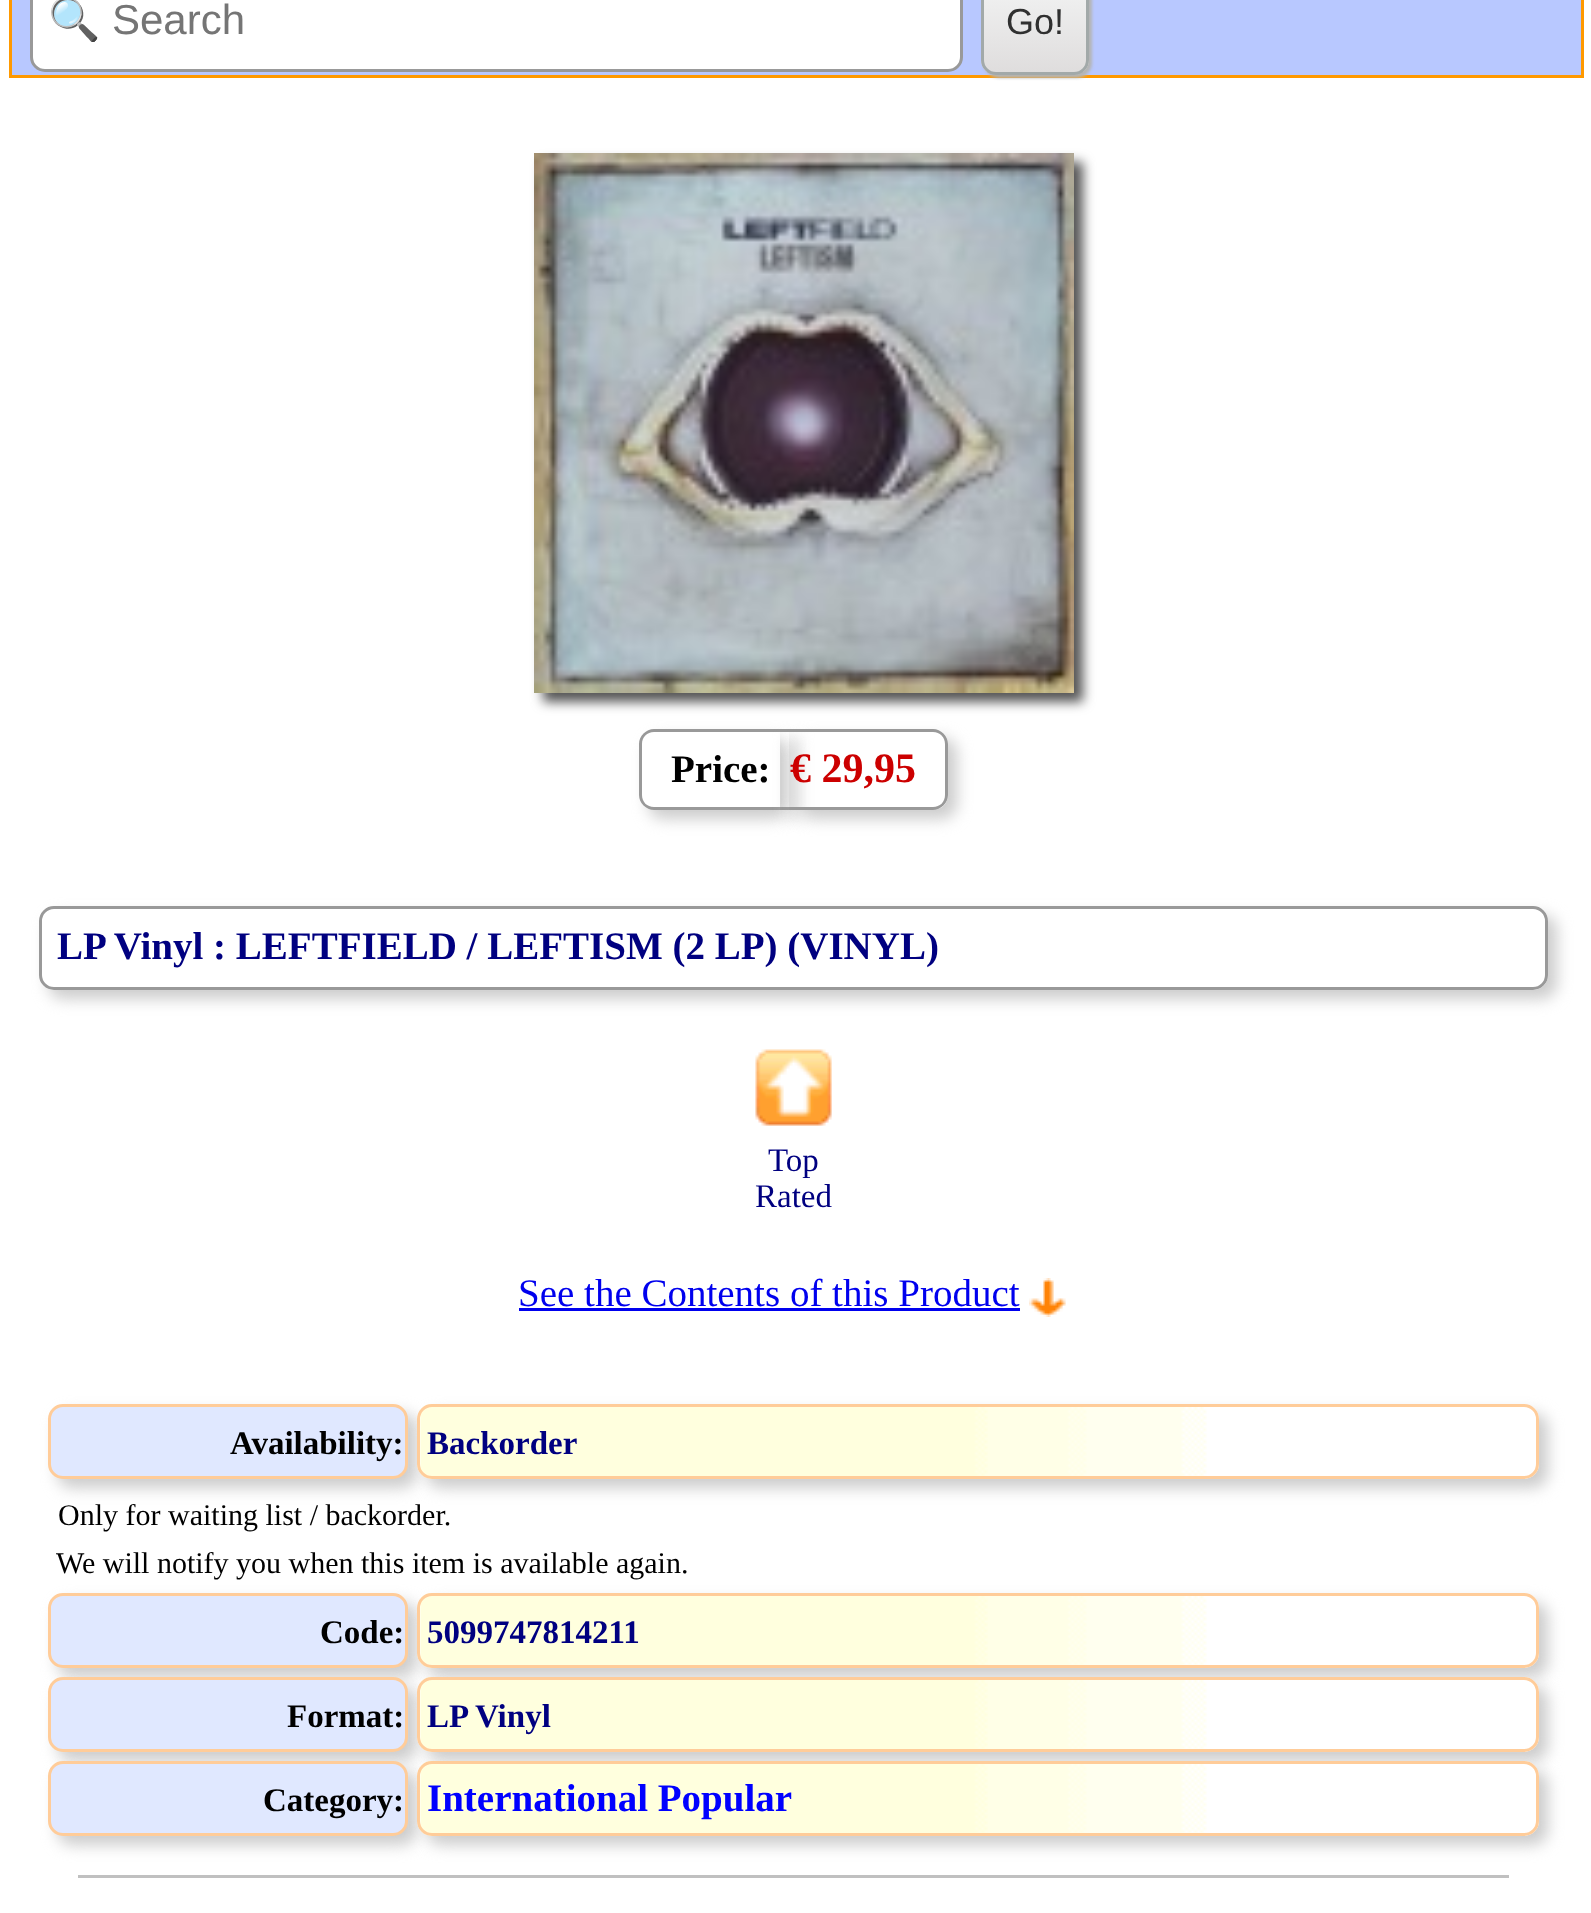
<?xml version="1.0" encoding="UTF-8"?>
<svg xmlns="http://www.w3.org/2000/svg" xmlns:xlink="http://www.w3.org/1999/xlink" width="1591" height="1913">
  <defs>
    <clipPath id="clip1"><rect x="981" y="-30" width="108" height="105" rx="15" /></clipPath>
    <linearGradient id="g1" gradientUnits="userSpaceOnUse" x1="1035" y1="-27" x2="1035" y2="72"><stop offset="0" stop-color="#f4f5f5" /><stop offset="1" stop-color="#dfdddd" /></linearGradient>
    <clipPath id="clip2"><path d="M 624 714 h 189 v 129 h -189 z m 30 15 h 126 v 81 h -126 c -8.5 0 -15 -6.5 -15 -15 v -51 c 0 -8.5 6.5 -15 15 -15 z" clip-rule="evenodd" /></clipPath>
    <clipPath id="clip3"><path d="M 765 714 h 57 v 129 h -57 z m 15 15 h 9 v 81 h -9 z" clip-rule="evenodd" /></clipPath>
    <clipPath id="clip4"><path d="M 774 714 h 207 v 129 h -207 z m 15 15 h 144 c 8.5 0 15 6.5 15 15 v 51 c 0 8.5 -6.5 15 -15 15 h -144 z" clip-rule="evenodd" /></clipPath>
    <clipPath id="clip5"><path d="M 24 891 h 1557 v 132 h -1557 z m 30 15 h 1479 c 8.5 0 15 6.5 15 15 v 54 c 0 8.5 -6.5 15 -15 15 h -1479 c -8.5 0 -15 -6.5 -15 -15 v -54 c 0 -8.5 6.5 -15 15 -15 z" clip-rule="evenodd" /></clipPath>
    <clipPath id="clip6"><rect x="48" width="906" height="42" /></clipPath>
  </defs>
  <rect width="100%" height="100%" fill="#ffffff" />
  <rect x="10.5" y="-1.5" width="1572" height="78" fill="#b8c8ff" stroke="#ff9900" stroke-width="3" />
  <rect x="31.5" y="-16.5" width="930" height="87" rx="13.5" fill="#ffffff" stroke="#999999" stroke-width="3" />
  <rect x="984" y="-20" width="108" height="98" rx="15" fill="#b4b5b5" filter="blur(1.5px)" />
  <g clip-path="url(#clip1)">
    <rect x="981" width="108" height="72" fill="url(#g1)" />
  </g>
  <rect x="982.5" y="-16.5" width="105" height="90" rx="13.5" fill="none" stroke="#a2a9a9" stroke-width="3" />
  <rect x="543" y="162" width="540" height="540" fill="#555555" filter="blur(6px)" />
  <image x="534" y="153" width="540" height="540" xlink:href="image1.png" />
  <g clip-path="url(#clip2)">
    <rect x="648" y="738" width="141" height="81" rx="15" fill="#cccccc" filter="blur(7.5px)" />
  </g>
  <path d="M 654 729 h 126 v 81 h -126 c -8 0 -15 -7 -15 -15 v -51 c 0 -8 7 -15 15 -15 z m 0 3 h 126 v 75 h -126 c -7 0 -12 -5 -12 -12 v -51 c 0 -7 5 -12 12 -12 z" fill="#999999" fill-rule="evenodd" />
  <g clip-path="url(#clip3)">
    <rect x="789" y="738" width="9" height="81" fill="#cccccc" filter="blur(7.5px)" />
  </g>
  <rect x="780" y="729" width="9" height="3" fill="#999999" />
  <rect x="780" y="807" width="9" height="3" fill="#999999" />
  <g clip-path="url(#clip4)">
    <rect x="798" y="738" width="159" height="81" rx="15" fill="#cccccc" filter="blur(7.5px)" />
  </g>
  <path d="M 789 729 h 144 c 8 0 15 7 15 15 v 51 c 0 8 -7 15 -15 15 h -144 z m 0 3 h 144 c 7 0 12 5 12 12 v 51 c 0 7 -5 12 -12 12 h -144 z" fill="#999999" fill-rule="evenodd" />
  <g clip-path="url(#clip5)">
    <rect x="48" y="915" width="1509" height="84" rx="15" fill="#cccccc" filter="blur(7.5px)" />
  </g>
  <rect x="40.5" y="907.5" width="1506" height="81" rx="13.5" fill="none" stroke="#999999" stroke-width="3" />
  <image x="755" y="1049" width="77" height="77" xlink:href="image2.png" />
  <rect x="519" y="1308" width="501" height="3" fill="#0000ee" />
  <image x="1029" y="1278" width="37" height="39" xlink:href="image3.png" />
  <rect x="57" y="1413" width="360" height="75" rx="15" fill="#cccccc" filter="blur(7.5px)" />
  <rect x="49.5" y="1405.5" width="357" height="72" rx="13.5" fill="#e0e8ff" stroke="#ffcc99" stroke-width="3" />
  <rect x="426" y="1413" width="1122" height="75" rx="15" fill="#cccccc" filter="blur(7.5px)" />
  <image x="417" y="1404" width="1122" height="75" xlink:href="image4.png" />
  <rect x="418.5" y="1405.5" width="1119" height="72" rx="13.5" fill="none" stroke="#ffcc99" stroke-width="3" />
  <rect x="57" y="1602" width="360" height="75" rx="15" fill="#cccccc" filter="blur(7.5px)" />
  <rect x="49.5" y="1594.5" width="357" height="72" rx="13.5" fill="#e0e8ff" stroke="#ffcc99" stroke-width="3" />
  <rect x="426" y="1602" width="1122" height="75" rx="15" fill="#cccccc" filter="blur(7.5px)" />
  <image x="417" y="1593" width="1122" height="75" xlink:href="image4.png" />
  <rect x="418.5" y="1594.5" width="1119" height="72" rx="13.5" fill="none" stroke="#ffcc99" stroke-width="3" />
  <rect x="57" y="1686" width="360" height="75" rx="15" fill="#cccccc" filter="blur(7.5px)" />
  <rect x="49.5" y="1678.5" width="357" height="72" rx="13.5" fill="#e0e8ff" stroke="#ffcc99" stroke-width="3" />
  <rect x="426" y="1686" width="1122" height="75" rx="15" fill="#cccccc" filter="blur(7.5px)" />
  <image x="417" y="1677" width="1122" height="75" xlink:href="image5.png" />
  <rect x="418.5" y="1678.5" width="1119" height="72" rx="13.5" fill="none" stroke="#ffcc99" stroke-width="3" />
  <rect x="57" y="1770" width="360" height="75" rx="15" fill="#cccccc" filter="blur(7.5px)" />
  <rect x="49.5" y="1762.5" width="357" height="72" rx="13.5" fill="#e0e8ff" stroke="#ffcc99" stroke-width="3" />
  <rect x="426" y="1770" width="1122" height="75" rx="15" fill="#cccccc" filter="blur(7.5px)" />
  <image x="417" y="1761" width="1122" height="75" xlink:href="image5.png" />
  <rect x="418.5" y="1762.5" width="1119" height="72" rx="13.5" fill="none" stroke="#ffcc99" stroke-width="3" />
  <rect x="78" y="1875" width="1431" height="3" fill="#c0c0c0" />
  <g clip-path="url(#clip6)">
    <text x="48" y="34" style="font-family: Noto Color Emoji; font-size: 42px; fill: #757575">🔍</text>
  </g>
  <text x="112" y="34" style="font-family: Liberation Sans; font-size: 42px; fill: #757575">Search</text>
  <text x="1006" y="34" style="font-family: Liberation Sans; font-size: 36px; fill: #303030">Go!</text>
  <text x="671" y="782" style="font-family: Liberation Serif; font-size: 39px; font-weight: bold; fill: #000000">Price:</text>
  <text x="790" y="782" style="font-family: Liberation Serif; font-size: 42px; font-weight: bold; fill: #cc0000">€ 29,95</text>
  <text x="57" y="959" style="font-family: Liberation Serif; font-size: 39px; font-weight: bold; fill: #000080">LP Vinyl : LEFTFIELD / LEFTISM (2 LP) (VINYL)</text>
  <text x="768" y="1171" style="font-family: Liberation Serif; font-size: 33px; fill: #000080">Top</text>
  <text x="755" y="1207" style="font-family: Liberation Serif; font-size: 33px; fill: #000080">Rated</text>
  <text x="518" y="1306" style="font-family: Liberation Serif; font-size: 39px; fill: #0000ee">See the Contents of this Product</text>
  <text x="230" y="1454" style="font-family: Liberation Serif; font-size: 33px; font-weight: bold; fill: #000000">Availability:</text>
  <text x="427" y="1454" style="font-family: Liberation Serif; font-size: 33px; font-weight: bold; fill: #000080">Backorder</text>
  <text x="58" y="1525" style="font-family: Liberation Serif; font-size: 30px; fill: #000000">Only for waiting list / backorder.</text>
  <text x="56" y="1573" style="font-family: Liberation Serif; font-size: 30px; fill: #000000">We will notify you when this item is available again.</text>
  <text x="320" y="1643" style="font-family: Liberation Serif; font-size: 33px; font-weight: bold; fill: #000000">Code:</text>
  <text x="427" y="1643" style="font-family: Liberation Serif; font-size: 33px; font-weight: bold; fill: #000080">5099747814211</text>
  <text x="287" y="1727" style="font-family: Liberation Serif; font-size: 33px; font-weight: bold; fill: #000000">Format:</text>
  <text x="427" y="1727" style="font-family: Liberation Serif; font-size: 33px; font-weight: bold; fill: #000080">LP Vinyl</text>
  <text x="263" y="1811" style="font-family: Liberation Serif; font-size: 33px; font-weight: bold; fill: #000000">Category:</text>
  <text x="427" y="1811" style="font-family: Liberation Serif; font-size: 39px; font-weight: bold; fill: #0000ff">International Popular</text>
</svg>
